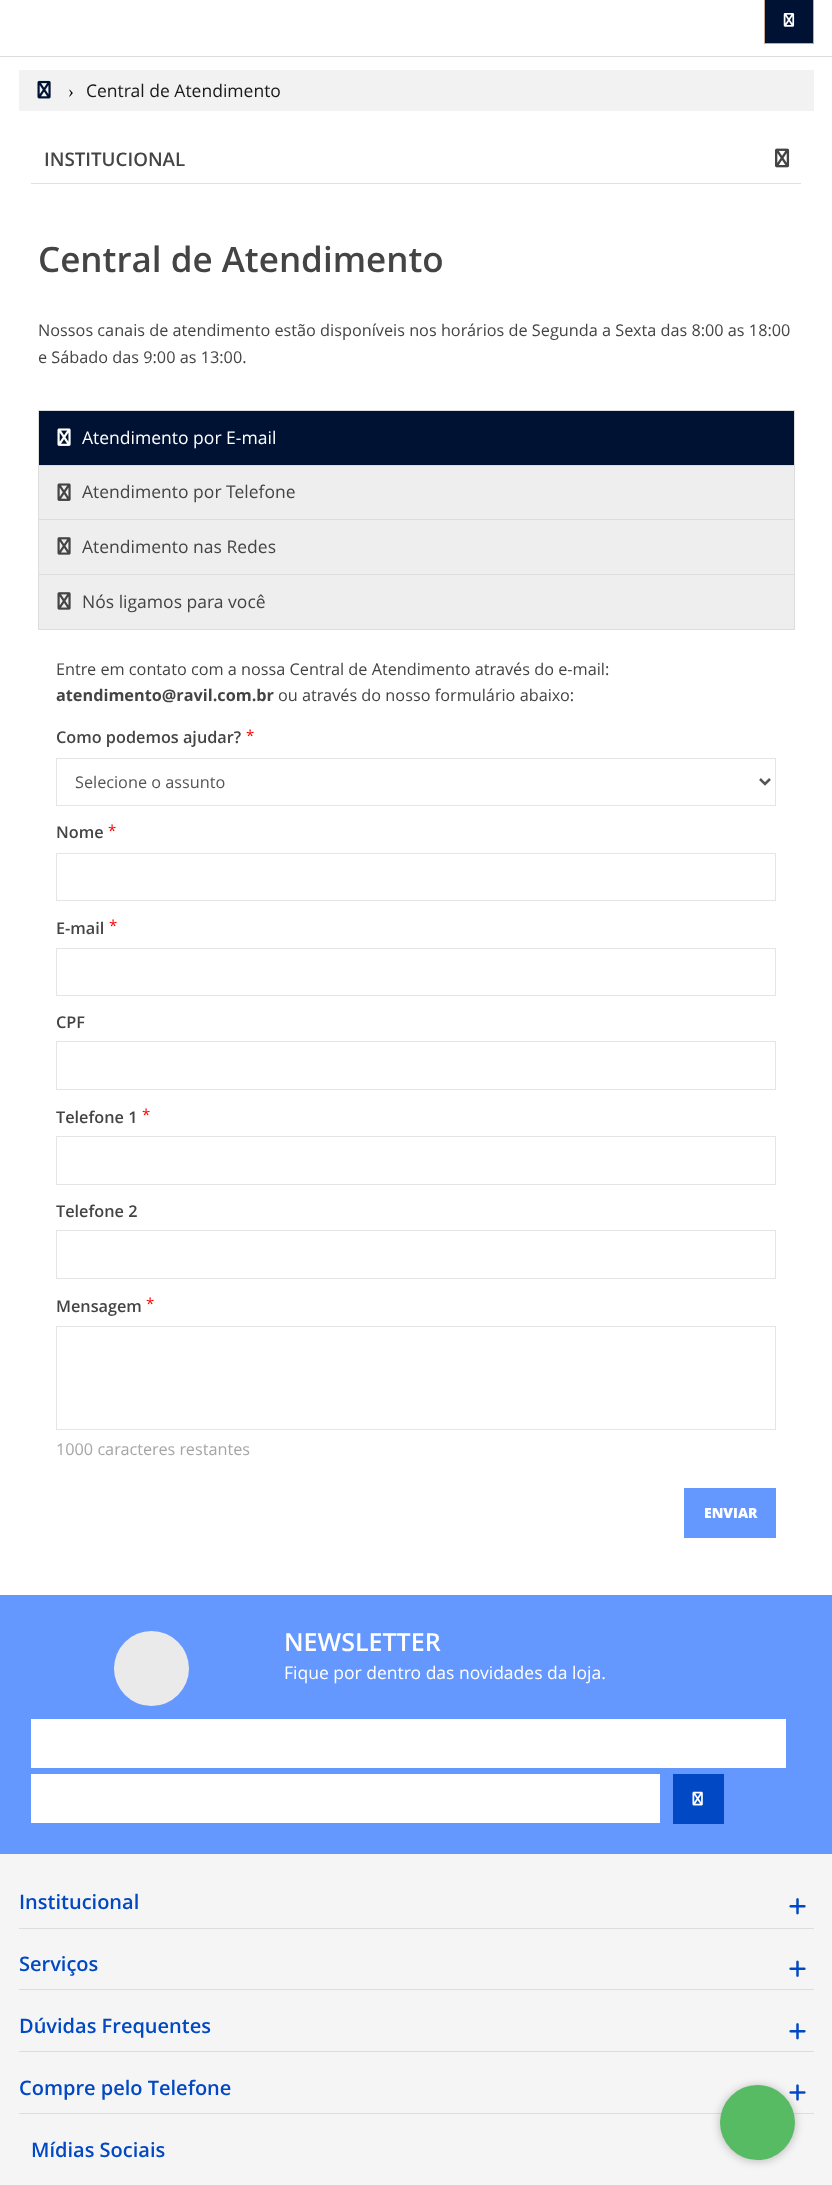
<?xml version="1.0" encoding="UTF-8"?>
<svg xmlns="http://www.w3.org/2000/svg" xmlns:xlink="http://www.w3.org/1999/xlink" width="832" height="2185">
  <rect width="100%" height="100%" fill="#ffffff" />
  <rect y="56" width="832" height="1" fill="#dddddd" />
  <rect x="764.5" y="-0.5" width="49" height="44" fill="#001233" stroke="#cea98e" />
  <image x="783" y="13" width="12" height="14" xlink:href="image1.png" />
  <rect x="19" y="70" width="795" height="41" fill="#f2f2f2" />
  <image x="37" y="80" width="14" height="19" xlink:href="image2.png" />
  <rect x="31" y="183" width="770" height="1" fill="#e1e1e1" />
  <image x="775" y="148" width="15" height="20" xlink:href="image3.png" />
  <rect x="794" y="410" width="1" height="220" fill="#dddddd" />
  <rect x="38" y="629" width="757" height="1" fill="#dddddd" />
  <rect x="38" y="410" width="1" height="220" fill="#dddddd" />
  <rect x="39" y="411" width="755" height="54" fill="#001233" />
  <rect x="39" y="410" width="755" height="1" fill="#dddddd" />
  <image x="57" y="428" width="14" height="18" xlink:href="image4.png" />
  <rect x="39" y="466" width="755" height="53" fill="#eeeeee" />
  <rect x="39" y="465" width="755" height="1" fill="#dddddd" />
  <image x="57" y="483" width="14" height="18" xlink:href="image5.png" />
  <rect x="39" y="520" width="755" height="54" fill="#eeeeee" />
  <rect x="39" y="519" width="755" height="1" fill="#dddddd" />
  <image x="57" y="537" width="14" height="18" xlink:href="image6.png" />
  <rect x="39" y="575" width="755" height="54" fill="#eeeeee" />
  <rect x="39" y="574" width="755" height="1" fill="#dddddd" />
  <image x="57" y="592" width="14" height="18" xlink:href="image6.png" />
  <rect x="56.5" y="758.5" width="719" height="47" fill="none" stroke="#e5e5e5" />
  <path d="M 760 779 l 5 5 l 5 -5" fill="none" stroke="#555555" stroke-width="2.5" />
  <rect x="56.5" y="853.5" width="719" height="47" fill="none" stroke="#e5e5e5" />
  <rect x="56.5" y="948.5" width="719" height="47" fill="none" stroke="#e5e5e5" />
  <rect x="56.5" y="1041.5" width="719" height="48" fill="none" stroke="#e5e5e5" />
  <rect x="56.5" y="1136.5" width="719" height="48" fill="none" stroke="#e5e5e5" />
  <rect x="56.5" y="1230.5" width="719" height="48" fill="none" stroke="#e5e5e5" />
  <rect x="56.5" y="1326.5" width="719" height="103" fill="none" stroke="#e5e5e5" />
  <rect x="684" y="1488" width="92" height="50" fill="#6598ff" />
  <rect y="1595" width="832" height="259" fill="#6598ff" />
  <circle cx="151.5" cy="1668.5" r="37.5" fill="#eaeaea" />
  <rect x="31" y="1719" width="755" height="49" fill="#ffffff" />
  <rect x="31" y="1774" width="629" height="49" fill="#ffffff" />
  <rect x="673" y="1774" width="51" height="50" fill="#0148c4" />
  <image x="692" y="1791" width="11" height="15" xlink:href="image7.png" />
  <rect y="1854" width="832" height="331" fill="#f5f5f5" />
  <image x="789" y="1898" width="17" height="17" xlink:href="image8.png" />
  <rect x="19" y="1928" width="795" height="1" fill="#dddddd" />
  <image x="789" y="1960" width="17" height="17" xlink:href="image9.png" />
  <rect x="19" y="1989" width="795" height="1" fill="#dddddd" />
  <image x="789" y="2023" width="17" height="17" xlink:href="image8.png" />
  <rect x="19" y="2051" width="795" height="1" fill="#dddddd" />
  <image x="789" y="2084" width="17" height="17" xlink:href="image10.png" />
  <rect x="19" y="2113" width="795" height="1" fill="#dddddd" />
  <rect x="720" y="2086" width="75" height="75" rx="37.5" fill="#000000" fill-opacity="0.25" filter="blur(5px)" />
  <circle cx="757.5" cy="2122.5" r="37.5" fill="#57bb63" />
  <text x="68" y="97" style="font-family: Liberation Serif; font-size: 17.5px; fill: #000000">›</text>
  <text x="86" y="97" style="font-family: Open Sans; font-size: 17.5px; fill: #191919">Central de Atendimento</text>
  <text x="44" y="166" style="font-family: Open Sans; font-size: 18.75px; font-weight: 600; fill: #444444">INSTITUCIONAL</text>
  <text x="38" y="272" style="font-family: Open Sans; font-size: 35px; font-weight: 600; fill: #444444">Central de Atendimento</text>
  <text x="38" y="336" style="font-family: Open Sans; font-size: 16.25px; fill: #444444">Nossos canais de atendimento estão disponíveis nos horários de Segunda a Sexta das 8:00 as 18:00</text>
  <text x="38" y="363" style="font-family: Open Sans; font-size: 16.25px; fill: #444444">e Sábado das 9:00 as 13:00.</text>
  <text x="82" y="444" style="font-family: Open Sans; font-size: 17.5px; fill: #ffffff">Atendimento por E-mail</text>
  <text x="82" y="498" style="font-family: Open Sans; font-size: 17.5px; fill: #444444">Atendimento por Telefone</text>
  <text x="82" y="553" style="font-family: Open Sans; font-size: 17.5px; fill: #444444">Atendimento nas Redes</text>
  <text x="82" y="608" style="font-family: Open Sans; font-size: 17.5px; fill: #444444">Nós ligamos para você</text>
  <text x="56" y="675" style="font-family: Open Sans; font-size: 16.25px; fill: #444444">Entre em contato com a nossa Central de Atendimento através do e-mail:</text>
  <text x="56" y="701" style="font-family: Open Sans; font-size: 16.25px; font-weight: bold; fill: #444444">atendimento@ravil.com.br</text>
  <text x="278" y="701" style="font-family: Open Sans; font-size: 16.25px; fill: #444444">ou através do nosso formulário abaixo:</text>
  <text x="56" y="743" style="font-family: Open Sans; font-size: 16.25px; font-weight: 600; fill: #444444">Como podemos ajudar?</text>
  <text x="246" y="741" style="font-family: Open Sans; font-size: 15px; fill: #ff0000">*</text>
  <text x="75" y="788" style="font-family: Open Sans; font-size: 16.25px; fill: #555555">Selecione o assunto</text>
  <text x="56" y="838" style="font-family: Open Sans; font-size: 16.25px; font-weight: 600; fill: #444444">Nome</text>
  <text x="108" y="836" style="font-family: Open Sans; font-size: 15px; fill: #ff0000">*</text>
  <text x="56" y="934" style="font-family: Open Sans; font-size: 16.25px; font-weight: 600; fill: #444444">E-mail</text>
  <text x="109" y="931" style="font-family: Open Sans; font-size: 15px; fill: #ff0000">*</text>
  <text x="56" y="1028" style="font-family: Open Sans; font-size: 16.25px; font-weight: 600; fill: #444444">CPF</text>
  <text x="56" y="1123" style="font-family: Open Sans; font-size: 16.25px; font-weight: 600; fill: #444444">Telefone 1</text>
  <text x="142" y="1120" style="font-family: Open Sans; font-size: 15px; fill: #ff0000">*</text>
  <text x="56" y="1217" style="font-family: Open Sans; font-size: 16.25px; font-weight: 600; fill: #444444">Telefone 2</text>
  <text x="56" y="1312" style="font-family: Open Sans; font-size: 16.25px; font-weight: 600; fill: #444444">Mensagem</text>
  <text x="146" y="1309" style="font-family: Open Sans; font-size: 15px; fill: #ff0000">*</text>
  <text x="56" y="1455" style="font-family: Open Sans; font-size: 16.25px; fill: #a6a6a6">1000 caracteres restantes</text>
  <text x="704" y="1518" style="font-family: Open Sans; font-size: 14px; font-weight: 800; fill: #ffffff">ENVIAR</text>
  <text x="284" y="1651" style="font-family: Open Sans; font-size: 25px; font-weight: 600; fill: #ffffff">NEWSLETTER</text>
  <text x="284" y="1679" style="font-family: Open Sans; font-size: 17.5px; fill: #ffffff">Fique por dentro das novidades da loja.</text>
  <text x="19" y="1909" style="font-family: Open Sans; font-size: 20px; font-weight: 600; fill: #0148c4">Institucional</text>
  <text x="19" y="1971" style="font-family: Open Sans; font-size: 20px; font-weight: 600; fill: #0148c4">Serviços</text>
  <text x="19" y="2033" style="font-family: Open Sans; font-size: 20px; font-weight: 600; fill: #0148c4">Dúvidas Frequentes</text>
  <text x="19" y="2095" style="font-family: Open Sans; font-size: 20px; font-weight: 600; fill: #0148c4">Compre pelo Telefone</text>
  <text x="31" y="2157" style="font-family: Open Sans; font-size: 20px; font-weight: 600; fill: #0148c4">Mídias Sociais</text>
</svg>
